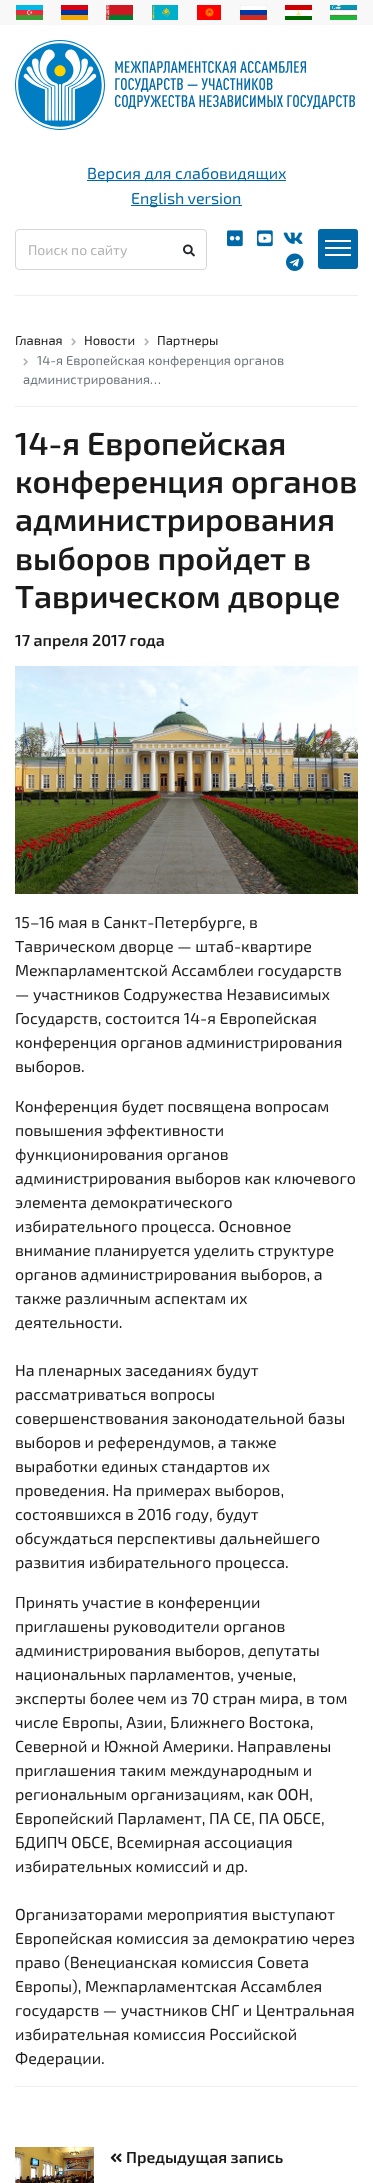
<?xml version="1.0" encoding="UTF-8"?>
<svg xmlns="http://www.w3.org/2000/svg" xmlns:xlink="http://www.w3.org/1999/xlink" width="373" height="2183">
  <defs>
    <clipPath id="clip1"><rect x="240" y="5" width="27" height="15" /></clipPath>
  </defs>
  <rect width="100%" height="100%" fill="#ffffff" />
  <rect width="373" height="25" fill="#f8f8f8" />
  <image x="16" y="5" width="27" height="15" xlink:href="image1.png" />
  <rect x="61" y="5" width="27" height="5" fill="#d90012" />
  <rect x="61" y="10" width="27" height="5" fill="#0033a0" />
  <rect x="61" y="15" width="27" height="5" fill="#f2a800" />
  <image x="106" y="5" width="27" height="15" xlink:href="image2.png" />
  <image x="152" y="5" width="26" height="15" xlink:href="image3.png" />
  <image x="197" y="5" width="24" height="15" xlink:href="image4.png" />
  <rect x="240" y="5" width="27" height="5" fill="#ffffff" />
  <g clip-path="url(#clip1)">
    <path d="M 240 12.5 h 27 v -7.5 h -27 z" fill="none" stroke="#a9a9a9" stroke-width="0.2" />
  </g>
  <rect x="240" y="10" width="27" height="5" fill="#0039a6" />
  <rect x="240" y="15" width="27" height="5" fill="#d52b1e" />
  <image x="285" y="5" width="27" height="15" xlink:href="image5.png" />
  <image x="330" y="5" width="27" height="15" xlink:href="image6.png" />
  <image x="15" y="40" width="90" height="90" xlink:href="image7.png" />
  <image x="115" y="61" width="240" height="48" xlink:href="image8.png" />
  <rect x="87" y="180" width="199" height="1" fill="#0068a6" />
  <rect x="131" y="205" width="111" height="1" fill="#0068a6" />
  <rect x="15.5" y="229.5" width="191" height="40" rx="3.5" fill="none" stroke="#d6d6d6" />
  <image x="183" y="244" width="12" height="13" xlink:href="image9.png" />
  <image x="227" y="230" width="16" height="17" xlink:href="image10.png" />
  <image x="257" y="230" width="16" height="17" xlink:href="image11.png" />
  <image x="283" y="232" width="20" height="12" xlink:href="image12.png" />
  <image x="286" y="253" width="18" height="18" xlink:href="image13.png" />
  <rect x="318" y="229" width="40" height="40" rx="3" fill="#0068a6" />
  <rect x="325" y="240" width="26" height="2" fill="#ffffff" />
  <rect x="325" y="247" width="26" height="2" fill="#ffffff" />
  <rect x="325" y="254" width="26" height="2" fill="#ffffff" />
  <rect x="15" y="295" width="343" height="1" fill="#eeeeee" />
  <image x="71" y="338" width="5" height="8" xlink:href="image14.png" />
  <image x="144" y="338" width="5" height="8" xlink:href="image14.png" />
  <image x="23" y="358" width="5" height="8" xlink:href="image14.png" />
  <rect x="15" y="406" width="343" height="1" fill="#eeeeee" />
  <image x="15" y="666" width="343" height="228" xlink:href="image15.png" />
  <rect x="15" y="2086" width="343" height="1" fill="#eeeeee" />
  <image x="15" y="2147" width="79" height="36" xlink:href="image16.png" />
  <image x="110" y="2153" width="12" height="10" xlink:href="image17.png" />
  <text x="87" y="179" style="font-family: 'Exo 2'; font-size: 16px; fill: #0068a6">Версия для слабовидящих</text>
  <text x="131" y="204" style="font-family: 'Exo 2'; font-size: 16px; fill: #0068a6">English version</text>
  <text x="28" y="255" style="font-family: 'Exo 2'; font-size: 14px; fill: #b2b2b2">Поиск по сайту</text>
  <text x="15" y="345" style="font-family: 'Exo 2'; font-size: 13px; fill: #1a1a1a">Главная</text>
  <text x="84" y="345" style="font-family: 'Exo 2'; font-size: 13px; fill: #1a1a1a">Новости</text>
  <text x="157" y="345" style="font-family: 'Exo 2'; font-size: 13px; fill: #1a1a1a">Партнеры</text>
  <text x="37" y="365" style="font-family: 'Exo 2'; font-size: 13px; fill: #6c757d">14-я Европейская конференция органов</text>
  <text x="23" y="384" style="font-family: 'Exo 2'; font-size: 13px; fill: #6c757d">администрирования…</text>
  <text x="15" y="455" style="font-family: 'Exo 2'; font-size: 32px; font-weight: 600; fill: #1a1a1a">14-я Европейская</text>
  <text x="15" y="493" style="font-family: 'Exo 2'; font-size: 32px; font-weight: 600; fill: #1a1a1a">конференция органов</text>
  <text x="15" y="531" style="font-family: 'Exo 2'; font-size: 32px; font-weight: 600; fill: #1a1a1a">администрирования</text>
  <text x="15" y="570" style="font-family: 'Exo 2'; font-size: 32px; font-weight: 600; fill: #1a1a1a">выборов пройдет в</text>
  <text x="15" y="608" style="font-family: 'Exo 2'; font-size: 32px; font-weight: 600; fill: #1a1a1a">Таврическом дворце</text>
  <text x="15" y="646" style="font-family: 'Exo 2'; font-size: 16px; font-weight: 600; fill: #1a1a1a">17 апреля 2017 года</text>
  <text x="15" y="928" style="font-family: 'Exo 2'; font-size: 16px; fill: #1a1a1a">15–16 мая в Санкт-Петербурге, в</text>
  <text x="15" y="952" style="font-family: 'Exo 2'; font-size: 16px; fill: #1a1a1a">Таврическом дворце — штаб-квартире</text>
  <text x="15" y="976" style="font-family: 'Exo 2'; font-size: 16px; fill: #1a1a1a">Межпарламентской Ассамблеи государств</text>
  <text x="15" y="1000" style="font-family: 'Exo 2'; font-size: 16px; fill: #1a1a1a">— участников Содружества Независимых</text>
  <text x="15" y="1024" style="font-family: 'Exo 2'; font-size: 16px; fill: #1a1a1a">Государств, состоится 14-я Европейская</text>
  <text x="15" y="1048" style="font-family: 'Exo 2'; font-size: 16px; fill: #1a1a1a">конференция органов администрирования</text>
  <text x="15" y="1072" style="font-family: 'Exo 2'; font-size: 16px; fill: #1a1a1a">выборов.</text>
  <text x="15" y="1112" style="font-family: 'Exo 2'; font-size: 16px; fill: #1a1a1a">Конференция будет посвящена вопросам</text>
  <text x="15" y="1136" style="font-family: 'Exo 2'; font-size: 16px; fill: #1a1a1a">повышения эффективности</text>
  <text x="15" y="1160" style="font-family: 'Exo 2'; font-size: 16px; fill: #1a1a1a">функционирования органов</text>
  <text x="15" y="1184" style="font-family: 'Exo 2'; font-size: 16px; fill: #1a1a1a">администрирования выборов как ключевого</text>
  <text x="15" y="1208" style="font-family: 'Exo 2'; font-size: 16px; fill: #1a1a1a">элемента демократического</text>
  <text x="15" y="1232" style="font-family: 'Exo 2'; font-size: 16px; fill: #1a1a1a">избирательного процесса. Основное</text>
  <text x="15" y="1256" style="font-family: 'Exo 2'; font-size: 16px; fill: #1a1a1a">внимание планируется уделить структуре</text>
  <text x="15" y="1280" style="font-family: 'Exo 2'; font-size: 16px; fill: #1a1a1a">органов администрирования выборов, а</text>
  <text x="15" y="1304" style="font-family: 'Exo 2'; font-size: 16px; fill: #1a1a1a">также различным аспектам их</text>
  <text x="15" y="1328" style="font-family: 'Exo 2'; font-size: 16px; fill: #1a1a1a">деятельности.</text>
  <text x="15" y="1376" style="font-family: 'Exo 2'; font-size: 16px; fill: #1a1a1a">На пленарных заседаниях будут</text>
  <text x="15" y="1400" style="font-family: 'Exo 2'; font-size: 16px; fill: #1a1a1a">рассматриваться вопросы</text>
  <text x="15" y="1424" style="font-family: 'Exo 2'; font-size: 16px; fill: #1a1a1a">совершенствования законодательной базы</text>
  <text x="15" y="1448" style="font-family: 'Exo 2'; font-size: 16px; fill: #1a1a1a">выборов и референдумов, а также</text>
  <text x="15" y="1472" style="font-family: 'Exo 2'; font-size: 16px; fill: #1a1a1a">выработки единых стандартов их</text>
  <text x="15" y="1496" style="font-family: 'Exo 2'; font-size: 16px; fill: #1a1a1a">проведения. На примерах выборов,</text>
  <text x="15" y="1520" style="font-family: 'Exo 2'; font-size: 16px; fill: #1a1a1a">состоявшихся в 2016 году, будут</text>
  <text x="15" y="1544" style="font-family: 'Exo 2'; font-size: 16px; fill: #1a1a1a">обсуждаться перспективы дальнейшего</text>
  <text x="15" y="1568" style="font-family: 'Exo 2'; font-size: 16px; fill: #1a1a1a">развития избирательного процесса.</text>
  <text x="15" y="1608" style="font-family: 'Exo 2'; font-size: 16px; fill: #1a1a1a">Принять участие в конференции</text>
  <text x="15" y="1632" style="font-family: 'Exo 2'; font-size: 16px; fill: #1a1a1a">приглашены руководители органов</text>
  <text x="15" y="1656" style="font-family: 'Exo 2'; font-size: 16px; fill: #1a1a1a">администрирования выборов, депутаты</text>
  <text x="15" y="1680" style="font-family: 'Exo 2'; font-size: 16px; fill: #1a1a1a">национальных парламентов, ученые,</text>
  <text x="15" y="1704" style="font-family: 'Exo 2'; font-size: 16px; fill: #1a1a1a">эксперты более чем из 70 стран мира, в том</text>
  <text x="15" y="1728" style="font-family: 'Exo 2'; font-size: 16px; fill: #1a1a1a">числе Европы, Азии, Ближнего Востока,</text>
  <text x="15" y="1752" style="font-family: 'Exo 2'; font-size: 16px; fill: #1a1a1a">Северной и Южной Америки. Направлены</text>
  <text x="15" y="1776" style="font-family: 'Exo 2'; font-size: 16px; fill: #1a1a1a">приглашения таким международным и</text>
  <text x="15" y="1800" style="font-family: 'Exo 2'; font-size: 16px; fill: #1a1a1a">региональным организациям, как ООН,</text>
  <text x="15" y="1824" style="font-family: 'Exo 2'; font-size: 16px; fill: #1a1a1a">Европейский Парламент, ПА СЕ, ПА ОБСЕ,</text>
  <text x="15" y="1848" style="font-family: 'Exo 2'; font-size: 16px; fill: #1a1a1a">БДИПЧ ОБСЕ, Всемирная ассоциация</text>
  <text x="15" y="1872" style="font-family: 'Exo 2'; font-size: 16px; fill: #1a1a1a">избирательных комиссий и др.</text>
  <text x="15" y="1920" style="font-family: 'Exo 2'; font-size: 16px; fill: #1a1a1a">Организаторами мероприятия выступают</text>
  <text x="15" y="1944" style="font-family: 'Exo 2'; font-size: 16px; fill: #1a1a1a">Европейская комиссия за демократию через</text>
  <text x="15" y="1968" style="font-family: 'Exo 2'; font-size: 16px; fill: #1a1a1a">право (Венецианская комиссия Совета</text>
  <text x="15" y="1992" style="font-family: 'Exo 2'; font-size: 16px; fill: #1a1a1a">Европы), Межпарламентская Ассамблея</text>
  <text x="15" y="2016" style="font-family: 'Exo 2'; font-size: 16px; fill: #1a1a1a">государств — участников СНГ и Центральная</text>
  <text x="15" y="2040" style="font-family: 'Exo 2'; font-size: 16px; fill: #1a1a1a">избирательная комиссия Российской</text>
  <text x="15" y="2064" style="font-family: 'Exo 2'; font-size: 16px; fill: #1a1a1a">Федерации.</text>
  <text x="126" y="2163" style="font-family: 'Exo 2'; font-size: 16px; font-weight: 600; fill: #1a1a1a">Предыдущая запись</text>
</svg>
